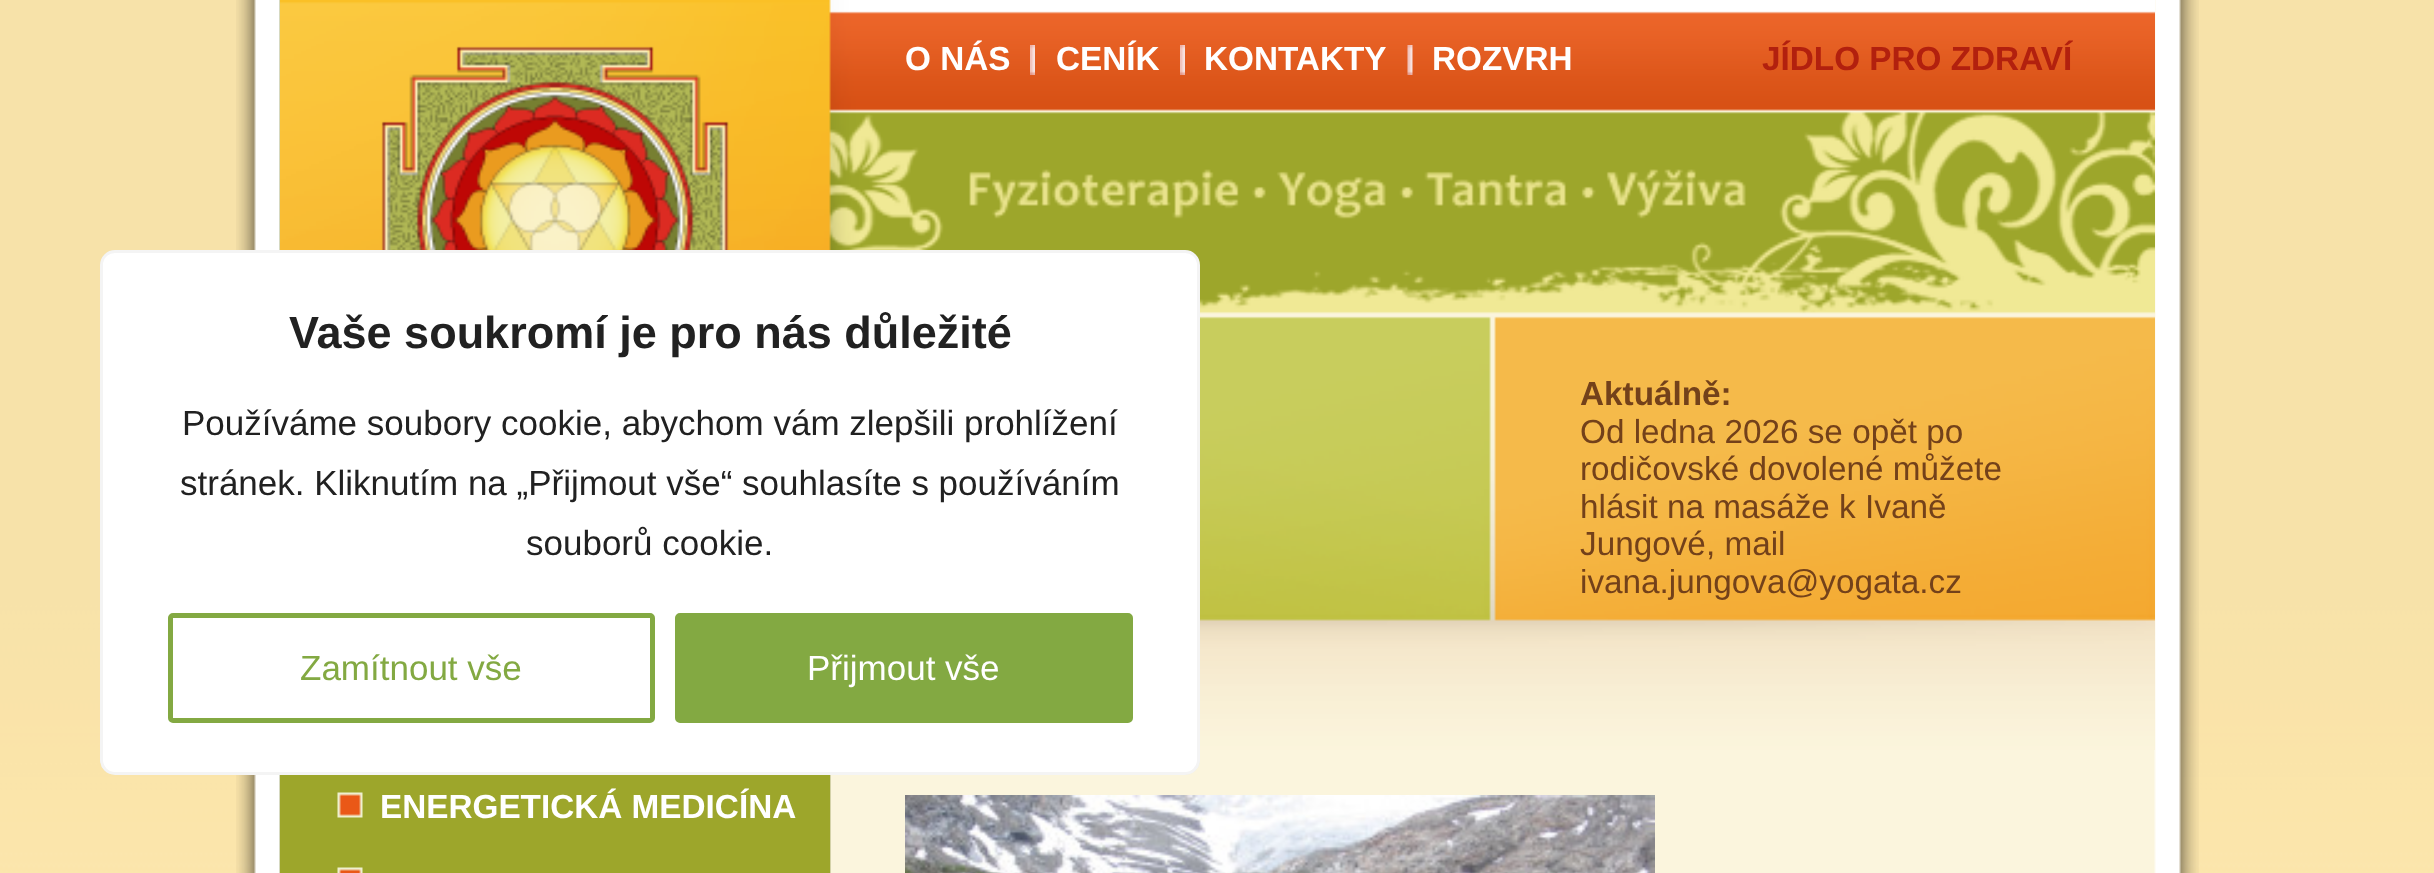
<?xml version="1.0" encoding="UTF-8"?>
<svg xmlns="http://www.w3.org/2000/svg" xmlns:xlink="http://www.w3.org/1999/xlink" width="2434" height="873">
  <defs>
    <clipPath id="clip1"><rect x="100" y="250" width="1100" height="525" rx="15" /></clipPath>
  </defs>
  <rect width="100%" height="100%" fill="#ffffff" />
  <image x="0" y="0" width="2434" height="873" xlink:href="image1.png" />
  <image x="236" y="0" width="1963" height="873" xlink:href="image2.png" />
  <image x="280" y="0" width="1875" height="750" xlink:href="image3.png" />
  <image x="1030" y="45" width="5" height="30" xlink:href="image4.png" />
  <image x="1180" y="45" width="5" height="30" xlink:href="image4.png" />
  <image x="1407" y="45" width="6" height="30" xlink:href="image5.png" />
  <rect x="280" y="775" width="550" height="98" fill="#9da62b" />
  <image x="337" y="792" width="26" height="26" xlink:href="image6.png" />
  <image x="337" y="867" width="26" height="6" xlink:href="image7.png" />
  <image x="905" y="795" width="750" height="78" xlink:href="image8.png" />
  <g clip-path="url(#clip1)">
    <rect x="100" y="248" width="1100" height="525" rx="15" fill="#acabab" fill-opacity="0.3" filter="blur(12.5px)" />
  </g>
  <rect x="101.5" y="251.5" width="1097" height="522" rx="13.5" fill="#ffffff" stroke="#f4f4f4" stroke-width="3" />
  <rect x="170.5" y="615.5" width="482" height="105" rx="2.5" fill="none" stroke="#83a942" stroke-width="5" />
  <rect x="677.5" y="615.5" width="453" height="105" rx="2.5" fill="#83a942" stroke="#83a942" stroke-width="5" />
  <text x="905" y="70" style="font-family: Liberation Sans; font-size: 33.3px; font-weight: bold; fill: #ffffff">O NÁS</text>
  <text x="1056" y="70" style="font-family: Liberation Sans; font-size: 33.3px; font-weight: bold; fill: #ffffff">CENÍK</text>
  <text x="1204" y="70" style="font-family: Liberation Sans; font-size: 33.3px; font-weight: bold; fill: #ffffff">KONTAKTY</text>
  <text x="1432" y="70" style="font-family: Liberation Sans; font-size: 33.3px; font-weight: bold; fill: #ffffff">ROZVRH</text>
  <text x="1762" y="70" style="font-family: Liberation Sans; font-size: 33.3px; font-weight: bold; fill: #b2200e">JÍDLO PRO ZDRAVÍ</text>
  <text x="1580" y="405" style="font-family: Liberation Sans; font-size: 33.3px; font-weight: bold; fill: #73411a">Aktuálně:</text>
  <text x="1580" y="443" style="font-family: Liberation Sans; font-size: 33.3px; fill: #73411a">Od ledna 2026 se opět po</text>
  <text x="1580" y="480" style="font-family: Liberation Sans; font-size: 33.3px; fill: #73411a">rodičovské dovolené můžete</text>
  <text x="1580" y="518" style="font-family: Liberation Sans; font-size: 33.3px; fill: #73411a">hlásit na masáže k Ivaně</text>
  <text x="1580" y="555" style="font-family: Liberation Sans; font-size: 33.3px; fill: #73411a">Jungové, mail</text>
  <text x="1580" y="593" style="font-family: Liberation Sans; font-size: 33.3px; fill: #73411a">ivana.jungova@yogata.cz</text>
  <text x="380" y="818" style="font-family: Liberation Sans; font-size: 33.3px; font-weight: bold; fill: #ffffff">ENERGETICKÁ MEDICÍNA</text>
  <text x="289" y="348" style="font-family: Liberation Sans; font-size: 45px; font-weight: bold; fill: #212121">Vaše soukromí je pro nás důležité</text>
  <text x="182" y="435" style="font-family: Liberation Sans; font-size: 35px; fill: #212121">Používáme soubory cookie, abychom vám zlepšili prohlížení</text>
  <text x="180" y="495" style="font-family: Liberation Sans; font-size: 35px; fill: #212121">stránek. Kliknutím na „Přijmout vše“ souhlasíte s používáním</text>
  <text x="526" y="555" style="font-family: Liberation Sans; font-size: 35px; fill: #212121">souborů cookie.</text>
  <text x="300" y="680" style="font-family: Liberation Sans; font-size: 35px; fill: #83a942">Zamítnout vše</text>
  <text x="807" y="680" style="font-family: Liberation Sans; font-size: 35px; fill: #ffffff">Přijmout vše</text>
</svg>
